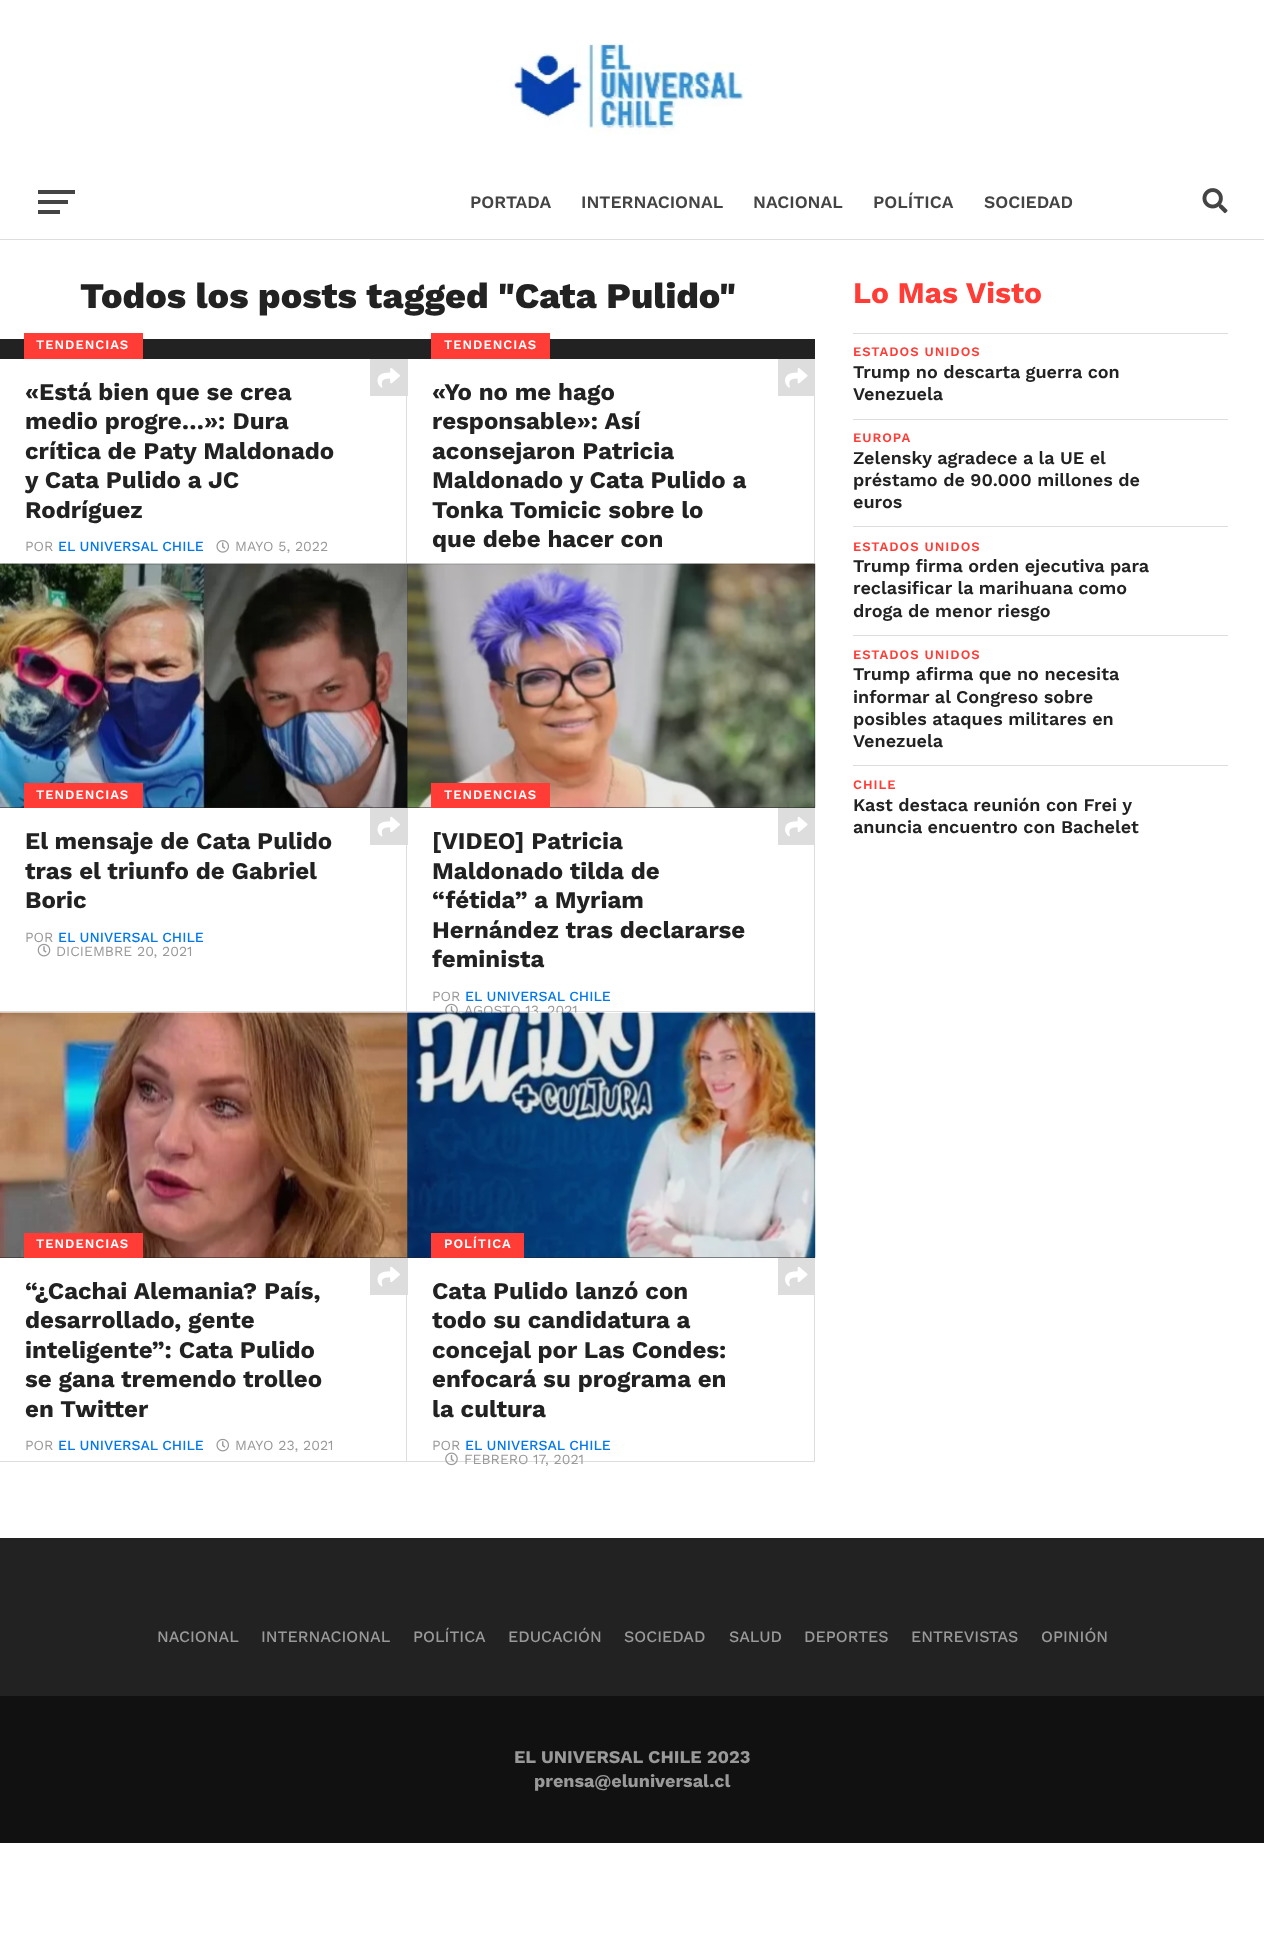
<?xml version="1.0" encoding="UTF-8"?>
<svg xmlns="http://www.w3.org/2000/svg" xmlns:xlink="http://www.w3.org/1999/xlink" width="1264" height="1960">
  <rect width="100%" height="100%" fill="#ffffff" />
  <image x="509" y="43" width="235" height="92" xlink:href="image1.png" />
  <rect x="38" y="190" width="37" height="4" fill="#444444" />
  <rect x="38" y="200" width="30" height="4" fill="#444444" />
  <rect x="38" y="210" width="22" height="4" fill="#444444" />
  <image x="1202" y="188" width="26" height="26" xlink:href="image2.png" />
  <rect y="239" width="1264" height="1" fill="#dddddd" />
  <rect y="563" width="815" height="1" fill="#dddddd" />
  <rect y="339" width="815" height="20" fill="#222222" />
  <rect x="406" y="396" width="1" height="167" fill="#dddddd" />
  <rect x="24" y="333" width="119" height="26" fill="#ff3c36" />
  <rect x="370" y="359" width="38" height="37" fill="#dddddd" />
  <image x="377" y="368" width="23" height="20" xlink:href="image3.png" />
  <image x="216" y="540" width="13" height="13" xlink:href="image4.png" />
  <rect x="814" y="396" width="1" height="167" fill="#dddddd" />
  <rect x="431" y="333" width="119" height="26" fill="#ff3c36" />
  <rect x="778" y="359" width="37" height="37" fill="#dddddd" />
  <image x="785" y="368" width="23" height="20" xlink:href="image5.png" />
  <rect y="1011" width="815" height="1" fill="#dddddd" />
  <rect y="564" width="815" height="244" fill="#222222" />
  <image x="0" y="563" width="408" height="245" xlink:href="image6.png" />
  <rect x="406" y="845" width="1" height="166" fill="#dddddd" />
  <rect x="24" y="783" width="119" height="25" fill="#ff3c36" />
  <rect x="370" y="808" width="38" height="37" fill="#dddddd" />
  <image x="377" y="816" width="23" height="21" xlink:href="image7.png" />
  <image x="37" y="943" width="14" height="14" xlink:href="image8.png" />
  <image x="407" y="563" width="409" height="245" xlink:href="image9.png" />
  <rect x="814" y="845" width="1" height="166" fill="#dddddd" />
  <rect x="431" y="783" width="119" height="25" fill="#ff3c36" />
  <rect x="778" y="808" width="37" height="37" fill="#dddddd" />
  <image x="785" y="816" width="23" height="21" xlink:href="image10.png" />
  <image x="445" y="1003" width="13" height="10" xlink:href="image11.png" />
  <rect y="1461" width="815" height="1" fill="#dddddd" />
  <rect x="406" y="1295" width="1" height="166" fill="#dddddd" />
  <rect x="370" y="1258" width="38" height="37" fill="#dddddd" />
  <image x="377" y="1266" width="23" height="21" xlink:href="image7.png" />
  <image x="216" y="1438" width="13" height="14" xlink:href="image13.png" />
  <rect x="814" y="1295" width="1" height="166" fill="#dddddd" />
  <rect x="778" y="1258" width="37" height="37" fill="#dddddd" />
  <image x="785" y="1266" width="23" height="21" xlink:href="image10.png" />
  <image x="445" y="1452" width="13" height="14" xlink:href="image15.png" />
  <rect x="853" y="333" width="375" height="1" fill="#dddddd" />
  <rect x="853" y="419" width="375" height="1" fill="#dddddd" />
  <rect x="853" y="526" width="375" height="1" fill="#dddddd" />
  <rect x="853" y="635" width="375" height="1" fill="#dddddd" />
  <rect x="853" y="765" width="375" height="1" fill="#dddddd" />
  <rect y="1538" width="1264" height="158" fill="#222222" />
  <rect y="1696" width="1264" height="147" fill="#111111" />
  <text x="470" y="208" style="font-family: Work Sans; font-size: 17.5px; font-weight: 600; fill: #444444">PORTADA</text>
  <text x="581" y="208" style="font-family: Work Sans; font-size: 17.5px; font-weight: 600; fill: #444444">INTERNACIONAL</text>
  <text x="753" y="208" style="font-family: Work Sans; font-size: 17.5px; font-weight: 600; fill: #444444">NACIONAL</text>
  <text x="873" y="208" style="font-family: Work Sans; font-size: 17.5px; font-weight: 600; fill: #444444">POLÍTICA</text>
  <text x="984" y="208" style="font-family: Work Sans; font-size: 17.5px; font-weight: 600; fill: #444444">SOCIEDAD</text>
  <text x="80" y="308" style="font-family: Work Sans; font-size: 36px; font-weight: 800; fill: #222222">Todos los posts tagged "Cata Pulido"</text>
  <text x="36" y="349" style="font-family: Work Sans; font-size: 13px; font-weight: 600; letter-spacing: 1px; fill: #ffffff">TENDENCIAS</text>
  <text x="25" y="400" style="font-family: Work Sans; font-size: 24px; font-weight: bold; fill: #222222">«Está bien que se crea</text>
  <text x="25" y="429" style="font-family: Work Sans; font-size: 24px; font-weight: bold; fill: #222222">medio progre…»: Dura</text>
  <text x="25" y="459" style="font-family: Work Sans; font-size: 24px; font-weight: bold; fill: #222222">crítica de Paty Maldonado</text>
  <text x="25" y="488" style="font-family: Work Sans; font-size: 24px; font-weight: bold; fill: #222222">y Cata Pulido a JC</text>
  <text x="25" y="518" style="font-family: Work Sans; font-size: 24px; font-weight: bold; fill: #222222">Rodríguez</text>
  <text x="25" y="551" style="font-family: Work Sans; font-size: 14px; fill: #999999">POR</text>
  <text x="58" y="551" style="font-family: Work Sans; font-size: 14px; font-weight: 500; fill: #0077ee">EL UNIVERSAL CHILE</text>
  <text x="235" y="551" style="font-family: Work Sans; font-size: 14px; fill: #999999">MAYO 5, 2022</text>
  <text x="444" y="349" style="font-family: Work Sans; font-size: 13px; font-weight: 600; letter-spacing: 1px; fill: #ffffff">TENDENCIAS</text>
  <text x="432" y="400" style="font-family: Work Sans; font-size: 24px; font-weight: bold; fill: #222222">«Yo no me hago</text>
  <text x="432" y="429" style="font-family: Work Sans; font-size: 24px; font-weight: bold; fill: #222222">responsable»: Así</text>
  <text x="432" y="459" style="font-family: Work Sans; font-size: 24px; font-weight: bold; fill: #222222">aconsejaron Patricia</text>
  <text x="432" y="488" style="font-family: Work Sans; font-size: 24px; font-weight: bold; fill: #222222">Maldonado y Cata Pulido a</text>
  <text x="432" y="518" style="font-family: Work Sans; font-size: 24px; font-weight: bold; fill: #222222">Tonka Tomicic sobre lo</text>
  <text x="432" y="547" style="font-family: Work Sans; font-size: 24px; font-weight: bold; fill: #222222">que debe hacer con</text>
  <text x="36" y="799" style="font-family: Work Sans; font-size: 13px; font-weight: 600; letter-spacing: 1px; fill: #ffffff">TENDENCIAS</text>
  <text x="25" y="849" style="font-family: Work Sans; font-size: 24px; font-weight: bold; fill: #222222">El mensaje de Cata Pulido</text>
  <text x="25" y="879" style="font-family: Work Sans; font-size: 24px; font-weight: bold; fill: #222222">tras el triunfo de Gabriel</text>
  <text x="25" y="908" style="font-family: Work Sans; font-size: 24px; font-weight: bold; fill: #222222">Boric</text>
  <text x="25" y="942" style="font-family: Work Sans; font-size: 14px; fill: #999999">POR</text>
  <text x="58" y="942" style="font-family: Work Sans; font-size: 14px; font-weight: 500; fill: #0077ee">EL UNIVERSAL CHILE</text>
  <text x="56" y="956" style="font-family: Work Sans; font-size: 14px; fill: #999999">DICIEMBRE 20, 2021</text>
  <text x="444" y="799" style="font-family: Work Sans; font-size: 13px; font-weight: 600; letter-spacing: 1px; fill: #ffffff">TENDENCIAS</text>
  <text x="432" y="849" style="font-family: Work Sans; font-size: 24px; font-weight: bold; fill: #222222">[VIDEO] Patricia</text>
  <text x="432" y="879" style="font-family: Work Sans; font-size: 24px; font-weight: bold; fill: #222222">Maldonado tilda de</text>
  <text x="432" y="908" style="font-family: Work Sans; font-size: 24px; font-weight: bold; fill: #222222">“fétida” a Myriam</text>
  <text x="432" y="938" style="font-family: Work Sans; font-size: 24px; font-weight: bold; fill: #222222">Hernández tras declararse</text>
  <text x="432" y="967" style="font-family: Work Sans; font-size: 24px; font-weight: bold; fill: #222222">feminista</text>
  <text x="432" y="1001" style="font-family: Work Sans; font-size: 14px; fill: #999999">POR</text>
  <text x="465" y="1001" style="font-family: Work Sans; font-size: 14px; font-weight: 500; fill: #0077ee">EL UNIVERSAL CHILE</text>
  <text x="464" y="1015" style="font-family: Work Sans; font-size: 14px; fill: #999999">AGOSTO 13, 2021</text>
  <rect y="1013" width="815" height="245" fill="#222222" />
  <image x="0" y="1012" width="408" height="246" xlink:href="image12.png" />
  <rect x="24" y="1233" width="119" height="25" fill="#ff3c36" />
  <text x="36" y="1248" style="font-family: Work Sans; font-size: 13px; font-weight: 600; letter-spacing: 1px; fill: #ffffff">TENDENCIAS</text>
  <text x="25" y="1299" style="font-family: Work Sans; font-size: 24px; font-weight: bold; fill: #222222">“¿Cachai Alemania? País,</text>
  <text x="25" y="1328" style="font-family: Work Sans; font-size: 24px; font-weight: bold; fill: #222222">desarrollado, gente</text>
  <text x="25" y="1358" style="font-family: Work Sans; font-size: 24px; font-weight: bold; fill: #222222">inteligente”: Cata Pulido</text>
  <text x="25" y="1387" style="font-family: Work Sans; font-size: 24px; font-weight: bold; fill: #222222">se gana tremendo trolleo</text>
  <text x="25" y="1417" style="font-family: Work Sans; font-size: 24px; font-weight: bold; fill: #222222">en Twitter</text>
  <text x="25" y="1450" style="font-family: Work Sans; font-size: 14px; fill: #999999">POR</text>
  <text x="58" y="1450" style="font-family: Work Sans; font-size: 14px; font-weight: 500; fill: #0077ee">EL UNIVERSAL CHILE</text>
  <text x="235" y="1450" style="font-family: Work Sans; font-size: 14px; fill: #999999">MAYO 23, 2021</text>
  <image x="407" y="1012" width="409" height="246" xlink:href="image14.png" />
  <rect x="431" y="1233" width="93" height="25" fill="#ff3c36" />
  <text x="444" y="1248" style="font-family: Work Sans; font-size: 13px; font-weight: 600; letter-spacing: 1px; fill: #ffffff">POLÍTICA</text>
  <text x="432" y="1299" style="font-family: Work Sans; font-size: 24px; font-weight: bold; fill: #222222">Cata Pulido lanzó con</text>
  <text x="432" y="1328" style="font-family: Work Sans; font-size: 24px; font-weight: bold; fill: #222222">todo su candidatura a</text>
  <text x="432" y="1358" style="font-family: Work Sans; font-size: 24px; font-weight: bold; fill: #222222">concejal por Las Condes:</text>
  <text x="432" y="1387" style="font-family: Work Sans; font-size: 24px; font-weight: bold; fill: #222222">enfocará su programa en</text>
  <text x="432" y="1417" style="font-family: Work Sans; font-size: 24px; font-weight: bold; fill: #222222">la cultura</text>
  <text x="432" y="1450" style="font-family: Work Sans; font-size: 14px; fill: #999999">POR</text>
  <text x="465" y="1450" style="font-family: Work Sans; font-size: 14px; font-weight: 500; fill: #0077ee">EL UNIVERSAL CHILE</text>
  <text x="464" y="1464" style="font-family: Work Sans; font-size: 14px; fill: #999999">FEBRERO 17, 2021</text>
  <text x="853" y="303" style="font-family: Work Sans; font-size: 30px; font-weight: bold; fill: #ff3c36">Lo Mas Visto</text>
  <text x="853" y="356" style="font-family: Work Sans; font-size: 13px; font-weight: 600; letter-spacing: 1px; fill: #ff3c36">ESTADOS UNIDOS</text>
  <text x="853" y="378" style="font-family: Work Sans; font-size: 18px; font-weight: 600; fill: #222222">Trump no descarta guerra con</text>
  <text x="853" y="400" style="font-family: Work Sans; font-size: 18px; font-weight: 600; fill: #222222">Venezuela</text>
  <text x="853" y="442" style="font-family: Work Sans; font-size: 13px; font-weight: 600; letter-spacing: 1px; fill: #ff3c36">EUROPA</text>
  <text x="853" y="464" style="font-family: Work Sans; font-size: 18px; font-weight: 600; fill: #222222">Zelensky agradece a la UE el</text>
  <text x="853" y="486" style="font-family: Work Sans; font-size: 18px; font-weight: 600; fill: #222222">préstamo de 90.000 millones de</text>
  <text x="853" y="508" style="font-family: Work Sans; font-size: 18px; font-weight: 600; fill: #222222">euros</text>
  <text x="853" y="551" style="font-family: Work Sans; font-size: 13px; font-weight: 600; letter-spacing: 1px; fill: #ff3c36">ESTADOS UNIDOS</text>
  <text x="853" y="572" style="font-family: Work Sans; font-size: 18px; font-weight: 600; fill: #222222">Trump firma orden ejecutiva para</text>
  <text x="853" y="594" style="font-family: Work Sans; font-size: 18px; font-weight: 600; fill: #222222">reclasificar la marihuana como</text>
  <text x="853" y="617" style="font-family: Work Sans; font-size: 18px; font-weight: 600; fill: #222222">droga de menor riesgo</text>
  <text x="853" y="659" style="font-family: Work Sans; font-size: 13px; font-weight: 600; letter-spacing: 1px; fill: #ff3c36">ESTADOS UNIDOS</text>
  <text x="853" y="680" style="font-family: Work Sans; font-size: 18px; font-weight: 600; fill: #222222">Trump afirma que no necesita</text>
  <text x="853" y="703" style="font-family: Work Sans; font-size: 18px; font-weight: 600; fill: #222222">informar al Congreso sobre</text>
  <text x="853" y="725" style="font-family: Work Sans; font-size: 18px; font-weight: 600; fill: #222222">posibles ataques militares en</text>
  <text x="853" y="747" style="font-family: Work Sans; font-size: 18px; font-weight: 600; fill: #222222">Venezuela</text>
  <text x="853" y="789" style="font-family: Work Sans; font-size: 13px; font-weight: 600; letter-spacing: 1px; fill: #ff3c36">CHILE</text>
  <text x="853" y="811" style="font-family: Work Sans; font-size: 18px; font-weight: 600; fill: #222222">Kast destaca reunión con Frei y</text>
  <text x="853" y="833" style="font-family: Work Sans; font-size: 18px; font-weight: 600; fill: #222222">anuncia encuentro con Bachelet</text>
  <text x="157" y="1642" style="font-family: Work Sans; font-size: 16px; font-weight: 500; fill: #999999">NACIONAL</text>
  <text x="261" y="1642" style="font-family: Work Sans; font-size: 16px; font-weight: 500; fill: #999999">INTERNACIONAL</text>
  <text x="413" y="1642" style="font-family: Work Sans; font-size: 16px; font-weight: 500; fill: #999999">POLÍTICA</text>
  <text x="508" y="1642" style="font-family: Work Sans; font-size: 16px; font-weight: 500; fill: #999999">EDUCACIÓN</text>
  <text x="624" y="1642" style="font-family: Work Sans; font-size: 16px; font-weight: 500; fill: #999999">SOCIEDAD</text>
  <text x="729" y="1642" style="font-family: Work Sans; font-size: 16px; font-weight: 500; fill: #999999">SALUD</text>
  <text x="804" y="1642" style="font-family: Work Sans; font-size: 16px; font-weight: 500; fill: #999999">DEPORTES</text>
  <text x="911" y="1642" style="font-family: Work Sans; font-size: 16px; font-weight: 500; fill: #999999">ENTREVISTAS</text>
  <text x="1041" y="1642" style="font-family: Work Sans; font-size: 16px; font-weight: 500; fill: #999999">OPINIÓN</text>
  <text x="514" y="1763" style="font-family: Work Sans; font-size: 18px; font-weight: bold; fill: #999999">EL UNIVERSAL CHILE 2023</text>
  <text x="534" y="1787" style="font-family: Work Sans; font-size: 18px; font-weight: bold; fill: #999999">prensa@eluniversal.cl</text>
</svg>
